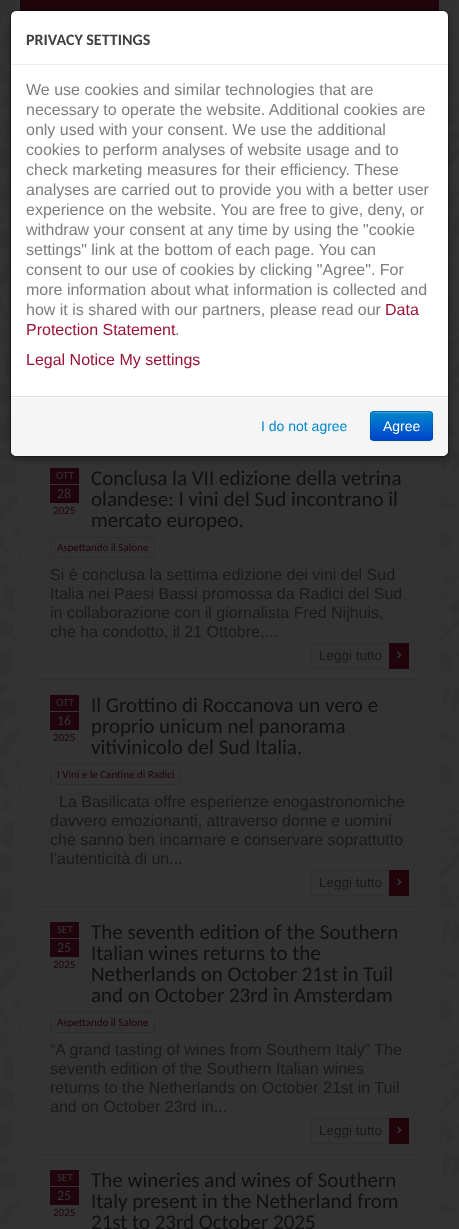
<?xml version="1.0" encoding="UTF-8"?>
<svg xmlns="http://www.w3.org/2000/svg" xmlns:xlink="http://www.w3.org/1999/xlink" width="459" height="1229">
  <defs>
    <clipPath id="clip1"><rect x="370" y="411" width="63" height="30" rx="4" /></clipPath>
    <linearGradient id="g1" gradientUnits="userSpaceOnUse" x1="402" y1="412" x2="402" y2="440"><stop offset="0" stop-color="#0088cc" /><stop offset="1" stop-color="#0044cc" /></linearGradient>
  </defs>
  <rect width="100%" height="100%" fill="#ffffff" />
  <image x="0" y="0" width="459" height="1229" xlink:href="image1.png" />
  <rect x="20" y="456" width="419" height="773" fill="#333333" />
  <rect x="20" width="419" height="11" fill="#1f040b" />
  <rect x="50" y="468" width="29" height="35" fill="#1f040b" />
  <rect x="10" y="13" width="439" height="447" rx="6" fill="#000000" fill-opacity="0.3" filter="blur(3.5px)" />
  <rect x="11" y="11" width="437" height="445" rx="5" fill="#ffffff" />
  <rect x="10.5" y="10.5" width="438" height="446" rx="5.5" fill="none" stroke="#000000" stroke-opacity="0.3" />
  <rect x="11" y="64" width="437" height="1" fill="#eeeeee" />
  <path d="M 11 396 h 437 v 54 c 0 3.5 -2.5 6 -6 6 h -425 c -3.5 0 -6 -2.5 -6 -6 z" fill="#f5f5f5" />
  <rect x="11" y="397" width="437" height="1" fill="#ffffff" />
  <rect x="11" y="396" width="437" height="1" fill="#dddddd" />
  <rect x="370" y="412" width="63" height="30" rx="4" fill="#000000" fill-opacity="0.05" filter="blur(1px)" />
  <rect x="370" y="411" width="63" height="30" rx="4" fill="#006dcc" />
  <g clip-path="url(#clip1)">
    <rect x="370" y="412" width="63" height="28" fill="url(#g1)" />
  </g>
  <path d="M 374 413 h 55 c 2 0 3 1 3 3 c 0 -6 -8 -4 -12 -4 h -37 c -4 0 -12 -2 -12 4 c 0 -2 1 -3 3 -3 z" fill="#339fd6" />
  <path d="M 431.5 439.5 l -2 1 h -56 l -2 -1" fill="none" stroke="#000000" stroke-opacity="0.25" />
  <path d="M 371.5 439.5 c -2 -2 -1 -10.5 -1 -13.5 c 0 -15.5 -2.5 -14.5 12.5 -14.5 h 37 c 15 0 12.5 -1 12.5 14.5 c 0 3 1 11.5 -1 13.5" fill="none" stroke="#000000" stroke-opacity="0.1" />
  <rect x="40" y="679" width="379" height="1" fill="#2e2e2e" />
  <rect x="50" y="484" width="29" height="1" fill="#333333" />
  <rect x="50.5" y="537.5" width="104" height="20" rx="3.5" fill="none" stroke="#2d2d2d" />
  <rect x="311" y="643" width="78" height="1" fill="#2e2e2e" />
  <rect x="311" y="668" width="78" height="1" fill="#2e2e2e" />
  <rect x="311" y="643" width="1" height="26" fill="#2e2e2e" />
  <rect x="389" y="643" width="20" height="26" fill="#1f040b" />
  <image x="397" y="651" width="5" height="8" xlink:href="image2.png" />
  <rect x="40" y="906" width="379" height="1" fill="#2e2e2e" />
  <rect x="50" y="695" width="29" height="35" fill="#1f040b" />
  <rect x="50" y="711" width="29" height="1" fill="#333333" />
  <rect x="50.5" y="764.5" width="130" height="20" rx="3.5" fill="none" stroke="#2d2d2d" />
  <rect x="311" y="870" width="78" height="1" fill="#2e2e2e" />
  <rect x="311" y="895" width="78" height="1" fill="#2e2e2e" />
  <rect x="311" y="870" width="1" height="26" fill="#2e2e2e" />
  <rect x="389" y="870" width="20" height="26" fill="#1f040b" />
  <image x="397" y="878" width="5" height="8" xlink:href="image2.png" />
  <rect x="40" y="1154" width="379" height="1" fill="#2e2e2e" />
  <rect x="50" y="922" width="29" height="35" fill="#1f040b" />
  <rect x="50" y="938" width="29" height="1" fill="#333333" />
  <rect x="50.5" y="1012.5" width="104" height="20" rx="3.5" fill="none" stroke="#2d2d2d" />
  <rect x="311" y="1118" width="78" height="1" fill="#2e2e2e" />
  <rect x="311" y="1143" width="78" height="1" fill="#2e2e2e" />
  <rect x="311" y="1118" width="1" height="26" fill="#2e2e2e" />
  <rect x="389" y="1118" width="20" height="26" fill="#1f040b" />
  <image x="397" y="1126" width="5" height="8" xlink:href="image2.png" />
  <rect x="50" y="1170" width="29" height="35" fill="#1f040b" />
  <rect x="50" y="1186" width="29" height="1" fill="#333333" />
  <text x="26" y="45" style="font-family: Carlito; font-size: 16px; font-weight: bold; fill: #404040">PRIVACY SETTINGS</text>
  <text x="26" y="95" style="font-family: Liberation Sans; font-size: 16px; fill: #7d7d7d">We use cookies and similar technologies that are</text>
  <text x="26" y="115" style="font-family: Liberation Sans; font-size: 16px; fill: #7d7d7d">necessary to operate the website. Additional cookies are</text>
  <text x="26" y="135" style="font-family: Liberation Sans; font-size: 16px; fill: #7d7d7d">only used with your consent. We use the additional</text>
  <text x="26" y="155" style="font-family: Liberation Sans; font-size: 16px; fill: #7d7d7d">cookies to perform analyses of website usage and to</text>
  <text x="26" y="175" style="font-family: Liberation Sans; font-size: 16px; fill: #7d7d7d">check marketing measures for their efficiency. These</text>
  <text x="26" y="195" style="font-family: Liberation Sans; font-size: 16px; fill: #7d7d7d">analyses are carried out to provide you with a better user</text>
  <text x="26" y="215" style="font-family: Liberation Sans; font-size: 16px; fill: #7d7d7d">experience on the website. You are free to give, deny, or</text>
  <text x="26" y="235" style="font-family: Liberation Sans; font-size: 16px; fill: #7d7d7d">withdraw your consent at any time by using the "cookie</text>
  <text x="26" y="255" style="font-family: Liberation Sans; font-size: 16px; fill: #7d7d7d">settings" link at the bottom of each page. You can</text>
  <text x="26" y="275" style="font-family: Liberation Sans; font-size: 16px; fill: #7d7d7d">consent to our use of cookies by clicking "Agree". For</text>
  <text x="26" y="295" style="font-family: Liberation Sans; font-size: 16px; fill: #7d7d7d">more information about what information is collected and</text>
  <text x="26" y="315" style="font-family: Liberation Sans; font-size: 16px; fill: #7d7d7d">how it is shared with our partners, please read our</text>
  <text x="385" y="315" style="font-family: Liberation Sans; font-size: 16px; fill: #991337">Data</text>
  <text x="26" y="335" style="font-family: Liberation Sans; font-size: 16px; fill: #991337">Protection Statement</text>
  <text x="175" y="335" style="font-family: Liberation Sans; font-size: 16px; fill: #7d7d7d">.</text>
  <text x="26" y="365" style="font-family: Liberation Sans; font-size: 16px; fill: #991337">Legal Notice My settings</text>
  <text x="261" y="431" style="font-family: Liberation Sans; font-size: 14px; fill: #0088cc">I do not agree</text>
  <text x="383" y="431" style="font-family: Liberation Sans; font-size: 14px; fill: #ffffff">Agree</text>
  <text x="56" y="479" style="font-family: Carlito; font-size: 11px; fill: #333333">OTT</text>
  <text x="57" y="498" style="font-family: Carlito; font-size: 14px; fill: #333333">28</text>
  <text x="53" y="514" style="font-family: Carlito; font-size: 11px; fill: #1f040b">2025</text>
  <text x="91" y="485" style="font-family: Carlito; font-size: 21px; fill: #101010">Conclusa la VII edizione della vetrina</text>
  <text x="91" y="506" style="font-family: Carlito; font-size: 21px; fill: #101010">olandese: I vini del Sud incontrano il</text>
  <text x="91" y="527" style="font-family: Carlito; font-size: 21px; fill: #101010">mercato europeo.</text>
  <text x="57" y="551" style="font-family: Carlito; font-size: 11px; fill: #1f040b">Aspettando il Salone</text>
  <text x="50" y="580" style="font-family: Liberation Sans; font-size: 16px; fill: #191919">Si è conclusa la settima edizione dei vini del Sud</text>
  <text x="50" y="599" style="font-family: Liberation Sans; font-size: 16px; fill: #191919">Italia nei Paesi Bassi promossa da Radici del Sud</text>
  <text x="50" y="618" style="font-family: Liberation Sans; font-size: 16px; fill: #191919">in collaborazione con il giornalista Fred Nijhuis,</text>
  <text x="50" y="637" style="font-family: Liberation Sans; font-size: 16px; fill: #191919">che ha condotto, il 21 Ottobre,...</text>
  <text x="319" y="660" style="font-family: Liberation Sans; font-size: 13.5px; fill: #191919">Leggi tutto</text>
  <text x="56" y="706" style="font-family: Carlito; font-size: 11px; fill: #333333">OTT</text>
  <text x="57" y="725" style="font-family: Carlito; font-size: 14px; fill: #333333">16</text>
  <text x="53" y="741" style="font-family: Carlito; font-size: 11px; fill: #1f040b">2025</text>
  <text x="91" y="712" style="font-family: Carlito; font-size: 21px; fill: #101010">Il Grottino di Roccanova un vero e</text>
  <text x="91" y="733" style="font-family: Carlito; font-size: 21px; fill: #101010">proprio unicum nel panorama</text>
  <text x="91" y="754" style="font-family: Carlito; font-size: 21px; fill: #101010">vitivinicolo del Sud Italia.</text>
  <text x="57" y="778" style="font-family: Carlito; font-size: 11px; fill: #1f040b">I Vini e le Cantine di Radici</text>
  <text x="59" y="807" style="font-family: Liberation Sans; font-size: 16px; fill: #191919">La Basilicata offre esperienze enogastronomiche</text>
  <text x="50" y="826" style="font-family: Liberation Sans; font-size: 16px; fill: #191919">davvero emozionanti, attraverso donne e uomini</text>
  <text x="50" y="845" style="font-family: Liberation Sans; font-size: 16px; fill: #191919">che sanno ben incarnare e conservare soprattutto</text>
  <text x="50" y="864" style="font-family: Liberation Sans; font-size: 16px; fill: #191919">l’autenticità di un...</text>
  <text x="319" y="887" style="font-family: Liberation Sans; font-size: 13.5px; fill: #191919">Leggi tutto</text>
  <text x="57" y="933" style="font-family: Carlito; font-size: 11px; fill: #333333">SET</text>
  <text x="57" y="952" style="font-family: Carlito; font-size: 14px; fill: #333333">25</text>
  <text x="53" y="968" style="font-family: Carlito; font-size: 11px; fill: #1f040b">2025</text>
  <text x="91" y="939" style="font-family: Carlito; font-size: 21px; fill: #101010">The seventh edition of the Southern</text>
  <text x="91" y="960" style="font-family: Carlito; font-size: 21px; fill: #101010">Italian wines returns to the</text>
  <text x="91" y="981" style="font-family: Carlito; font-size: 21px; fill: #101010">Netherlands on October 21st in Tuil</text>
  <text x="91" y="1002" style="font-family: Carlito; font-size: 21px; fill: #101010">and on October 23rd in Amsterdam</text>
  <text x="57" y="1026" style="font-family: Carlito; font-size: 11px; fill: #1f040b">Aspettando il Salone</text>
  <text x="50" y="1055" style="font-family: Liberation Sans; font-size: 16px; fill: #191919">“A grand tasting of wines from Southern Italy” The</text>
  <text x="50" y="1074" style="font-family: Liberation Sans; font-size: 16px; fill: #191919">seventh edition of the Southern Italian wines</text>
  <text x="50" y="1093" style="font-family: Liberation Sans; font-size: 16px; fill: #191919">returns to the Netherlands on October 21st in Tuil</text>
  <text x="50" y="1112" style="font-family: Liberation Sans; font-size: 16px; fill: #191919">and on October 23rd in...</text>
  <text x="319" y="1135" style="font-family: Liberation Sans; font-size: 13.5px; fill: #191919">Leggi tutto</text>
  <text x="57" y="1181" style="font-family: Carlito; font-size: 11px; fill: #333333">SET</text>
  <text x="57" y="1200" style="font-family: Carlito; font-size: 14px; fill: #333333">25</text>
  <text x="53" y="1216" style="font-family: Carlito; font-size: 11px; fill: #1f040b">2025</text>
  <text x="91" y="1187" style="font-family: Carlito; font-size: 21px; fill: #101010">The wineries and wines of Southern</text>
  <text x="91" y="1208" style="font-family: Carlito; font-size: 21px; fill: #101010">Italy present in the Netherland from</text>
  <text x="91" y="1229" style="font-family: Carlito; font-size: 21px; fill: #101010">21st to 23rd October 2025</text>
</svg>
